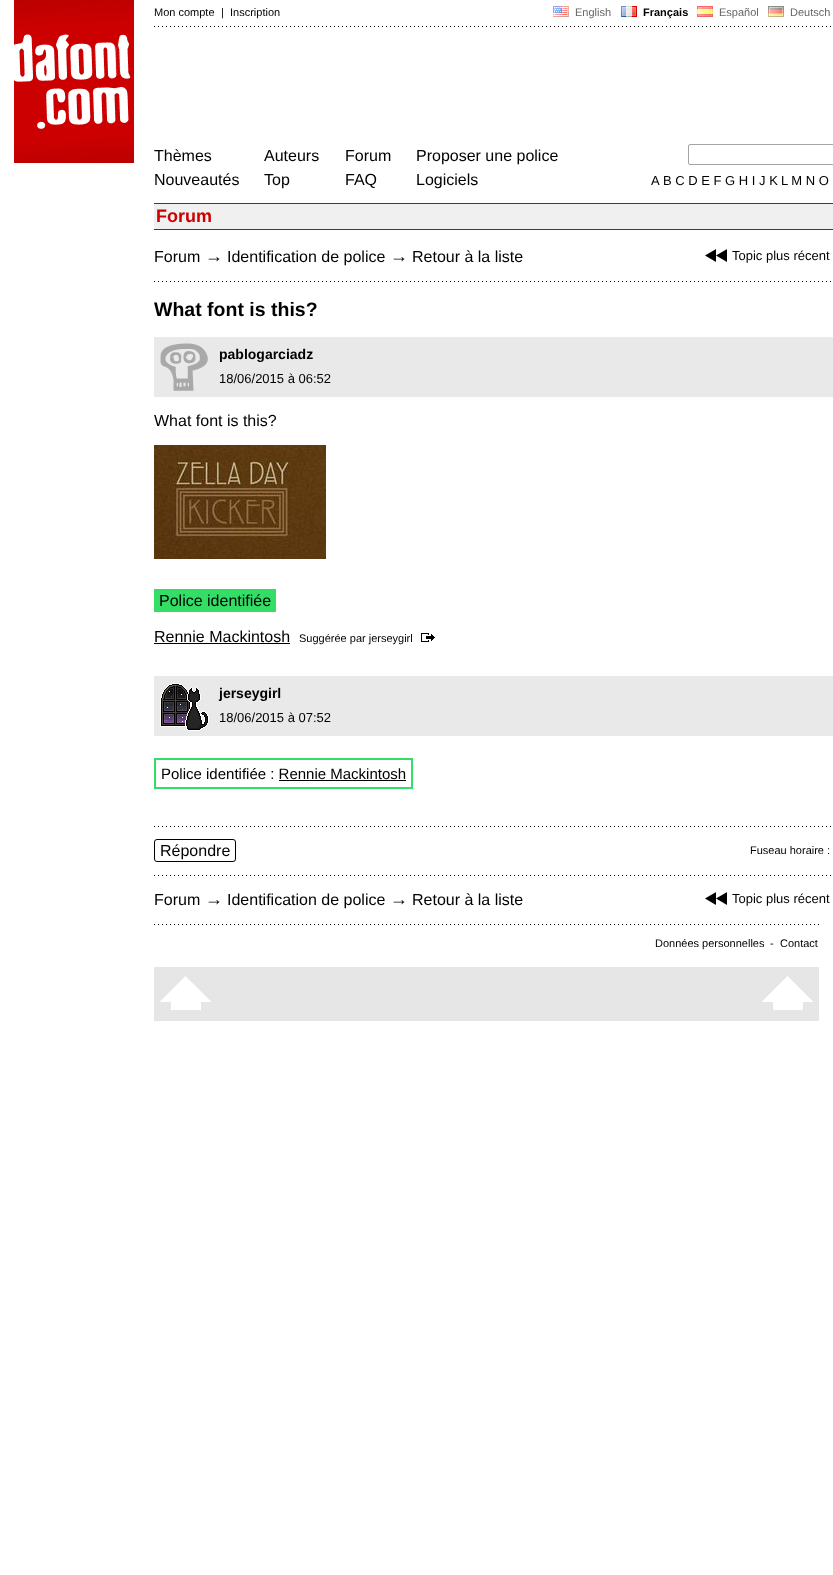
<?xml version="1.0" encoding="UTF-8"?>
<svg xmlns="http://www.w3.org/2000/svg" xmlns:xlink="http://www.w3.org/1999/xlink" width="833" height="1575">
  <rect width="100%" height="100%" fill="#ffffff" />
  <image x="14" y="0" width="120" height="163" xlink:href="image1.png" />
  <image x="553" y="6" width="16" height="11" xlink:href="image2.png" />
  <image x="621" y="6" width="16" height="11" xlink:href="image3.png" />
  <image x="697" y="6" width="16" height="11" xlink:href="image4.png" />
  <image x="768" y="6" width="16" height="11" xlink:href="image5.png" />
  <image x="154" y="26" width="677" height="1" xlink:href="image6.png" />
  <rect x="688.5" y="144.5" width="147" height="20" rx="1.5" fill="none" stroke="#a4a4a4" />
  <rect x="154" y="204" width="679" height="25" fill="#f0f0f0" />
  <rect x="154" y="203" width="679" height="1" fill="#cc0000" />
  <rect x="154" y="229" width="679" height="1" fill="#cc0000" />
  <image x="705" y="249" width="22" height="13" xlink:href="image7.png" />
  <image x="154" y="281" width="677" height="1" xlink:href="image6.png" />
  <rect x="154" y="337" width="679" height="60" fill="#e9e9e9" />
  <image x="160" y="343" width="48" height="48" xlink:href="image8.png" />
  <image x="154" y="445" width="172" height="114" xlink:href="image9.png" />
  <rect x="154" y="589" width="122" height="23" fill="#33dd66" />
  <rect x="154" y="643" width="136" height="1" fill="#000000" />
  <image x="421" y="633" width="14" height="9" xlink:href="image10.png" />
  <rect x="154" y="676" width="679" height="60" fill="#e9e9e9" />
  <image x="160" y="683" width="49" height="48" xlink:href="image11.png" />
  <rect x="155" y="759" width="257" height="29" fill="none" stroke="#33dd66" stroke-width="2" />
  <rect x="279" y="780" width="127" height="1" fill="#000000" />
  <image x="154" y="826" width="677" height="1" xlink:href="image6.png" />
  <rect x="154.5" y="839.5" width="81" height="22" rx="2.5" fill="none" stroke="#000000" />
  <image x="154" y="875" width="677" height="1" xlink:href="image6.png" />
  <image x="705" y="892" width="22" height="13" xlink:href="image7.png" />
  <image x="154" y="924" width="665" height="1" xlink:href="image12.png" />
  <rect x="154" y="967" width="665" height="54" fill="#e6e6e6" />
  <image x="160" y="976" width="51" height="34" xlink:href="image13.png" />
  <image x="762" y="976" width="51" height="34" xlink:href="image13.png" />
  <text x="154" y="16" style="font-family: Liberation Sans; font-size: 11px; fill: #000000">Mon compte</text>
  <text x="221" y="16" style="font-family: Liberation Sans; font-size: 11px; fill: #000000">|</text>
  <text x="230" y="16" style="font-family: Liberation Sans; font-size: 11px; fill: #000000">Inscription</text>
  <text x="575" y="16" style="font-family: Liberation Sans; font-size: 11px; fill: #666666">English</text>
  <text x="643" y="16" style="font-family: Liberation Sans; font-size: 11px; font-weight: bold; fill: #000000">Français</text>
  <text x="719" y="16" style="font-family: Liberation Sans; font-size: 11px; fill: #666666">Español</text>
  <text x="790" y="16" style="font-family: Liberation Sans; font-size: 11px; fill: #666666">Deutsch</text>
  <text x="154" y="161" style="font-family: Liberation Sans; font-size: 16px; fill: #000000">Thèmes</text>
  <text x="154" y="185" style="font-family: Liberation Sans; font-size: 16px; fill: #000000">Nouveautés</text>
  <text x="264" y="161" style="font-family: Liberation Sans; font-size: 16px; fill: #000000">Auteurs</text>
  <text x="264" y="185" style="font-family: Liberation Sans; font-size: 16px; fill: #000000">Top</text>
  <text x="345" y="161" style="font-family: Liberation Sans; font-size: 16px; fill: #000000">Forum</text>
  <text x="345" y="185" style="font-family: Liberation Sans; font-size: 16px; fill: #000000">FAQ</text>
  <text x="416" y="161" style="font-family: Liberation Sans; font-size: 16px; fill: #000000">Proposer une police</text>
  <text x="416" y="185" style="font-family: Liberation Sans; font-size: 16px; fill: #000000">Logiciels</text>
  <text x="651" y="185" style="font-family: Liberation Sans; font-size: 13px; fill: #000000">A</text>
  <text x="663" y="185" style="font-family: Liberation Sans; font-size: 13px; fill: #000000">B C D E F G H I J K</text>
  <text x="781" y="185" style="font-family: Liberation Sans; font-size: 13px; fill: #000000">L M N O</text>
  <text x="156" y="222" style="font-family: Liberation Sans; font-size: 18px; font-weight: bold; fill: #cc0000">Forum</text>
  <text x="154" y="262" style="font-family: Liberation Sans; font-size: 16px; fill: #000000">Forum</text>
  <text x="205" y="262" style="font-family: Liberation Sans; font-size: 18px; fill: #000000">→</text>
  <text x="227" y="262" style="font-family: Liberation Sans; font-size: 16px; fill: #000000">Identification de police</text>
  <text x="390" y="262" style="font-family: Liberation Sans; font-size: 18px; fill: #000000">→</text>
  <text x="412" y="262" style="font-family: Liberation Sans; font-size: 16px; fill: #000000">Retour à la liste</text>
  <text x="732" y="260" style="font-family: Liberation Sans; font-size: 13px; fill: #000000">Topic plus récent</text>
  <text x="154" y="316" style="font-family: Liberation Sans; font-size: 19.5px; font-weight: bold; fill: #000000">What font is this?</text>
  <text x="219" y="359" style="font-family: Liberation Sans; font-size: 14px; font-weight: bold; fill: #000000">pablogarciadz</text>
  <text x="219" y="383" style="font-family: Liberation Sans; font-size: 13px; fill: #000000">18/06/2015 à 06:52</text>
  <text x="154" y="426" style="font-family: Liberation Sans; font-size: 16px; fill: #000000">What font is this?</text>
  <text x="159" y="606" style="font-family: Liberation Sans; font-size: 16px; fill: #000000">Police identifiée</text>
  <text x="154" y="642" style="font-family: Liberation Sans; font-size: 16px; fill: #000000">Rennie Mackintosh</text>
  <text x="299" y="642" style="font-family: Liberation Sans; font-size: 11px; fill: #000000">Suggérée par jerseygirl</text>
  <text x="219" y="698" style="font-family: Liberation Sans; font-size: 14px; font-weight: bold; fill: #000000">jerseygirl</text>
  <text x="219" y="722" style="font-family: Liberation Sans; font-size: 13px; fill: #000000">18/06/2015 à 07:52</text>
  <text x="161" y="779" style="font-family: Liberation Sans; font-size: 15px; fill: #000000">Police identifiée : Rennie Mackintosh</text>
  <text x="160" y="856" style="font-family: Liberation Sans; font-size: 16px; fill: #000000">Répondre</text>
  <text x="750" y="854" style="font-family: Liberation Sans; font-size: 11px; fill: #000000">Fuseau horaire :</text>
  <text x="154" y="905" style="font-family: Liberation Sans; font-size: 16px; fill: #000000">Forum</text>
  <text x="205" y="905" style="font-family: Liberation Sans; font-size: 18px; fill: #000000">→</text>
  <text x="227" y="905" style="font-family: Liberation Sans; font-size: 16px; fill: #000000">Identification de police</text>
  <text x="390" y="905" style="font-family: Liberation Sans; font-size: 18px; fill: #000000">→</text>
  <text x="412" y="905" style="font-family: Liberation Sans; font-size: 16px; fill: #000000">Retour à la liste</text>
  <text x="732" y="903" style="font-family: Liberation Sans; font-size: 13px; fill: #000000">Topic plus récent</text>
  <text x="655" y="947" style="font-family: Liberation Sans; font-size: 11px; fill: #000000">Données personnelles</text>
  <text x="770" y="947" style="font-family: Liberation Sans; font-size: 11px; fill: #000000">-</text>
  <text x="780" y="947" style="font-family: Liberation Sans; font-size: 11px; fill: #000000">Contact</text>
</svg>
